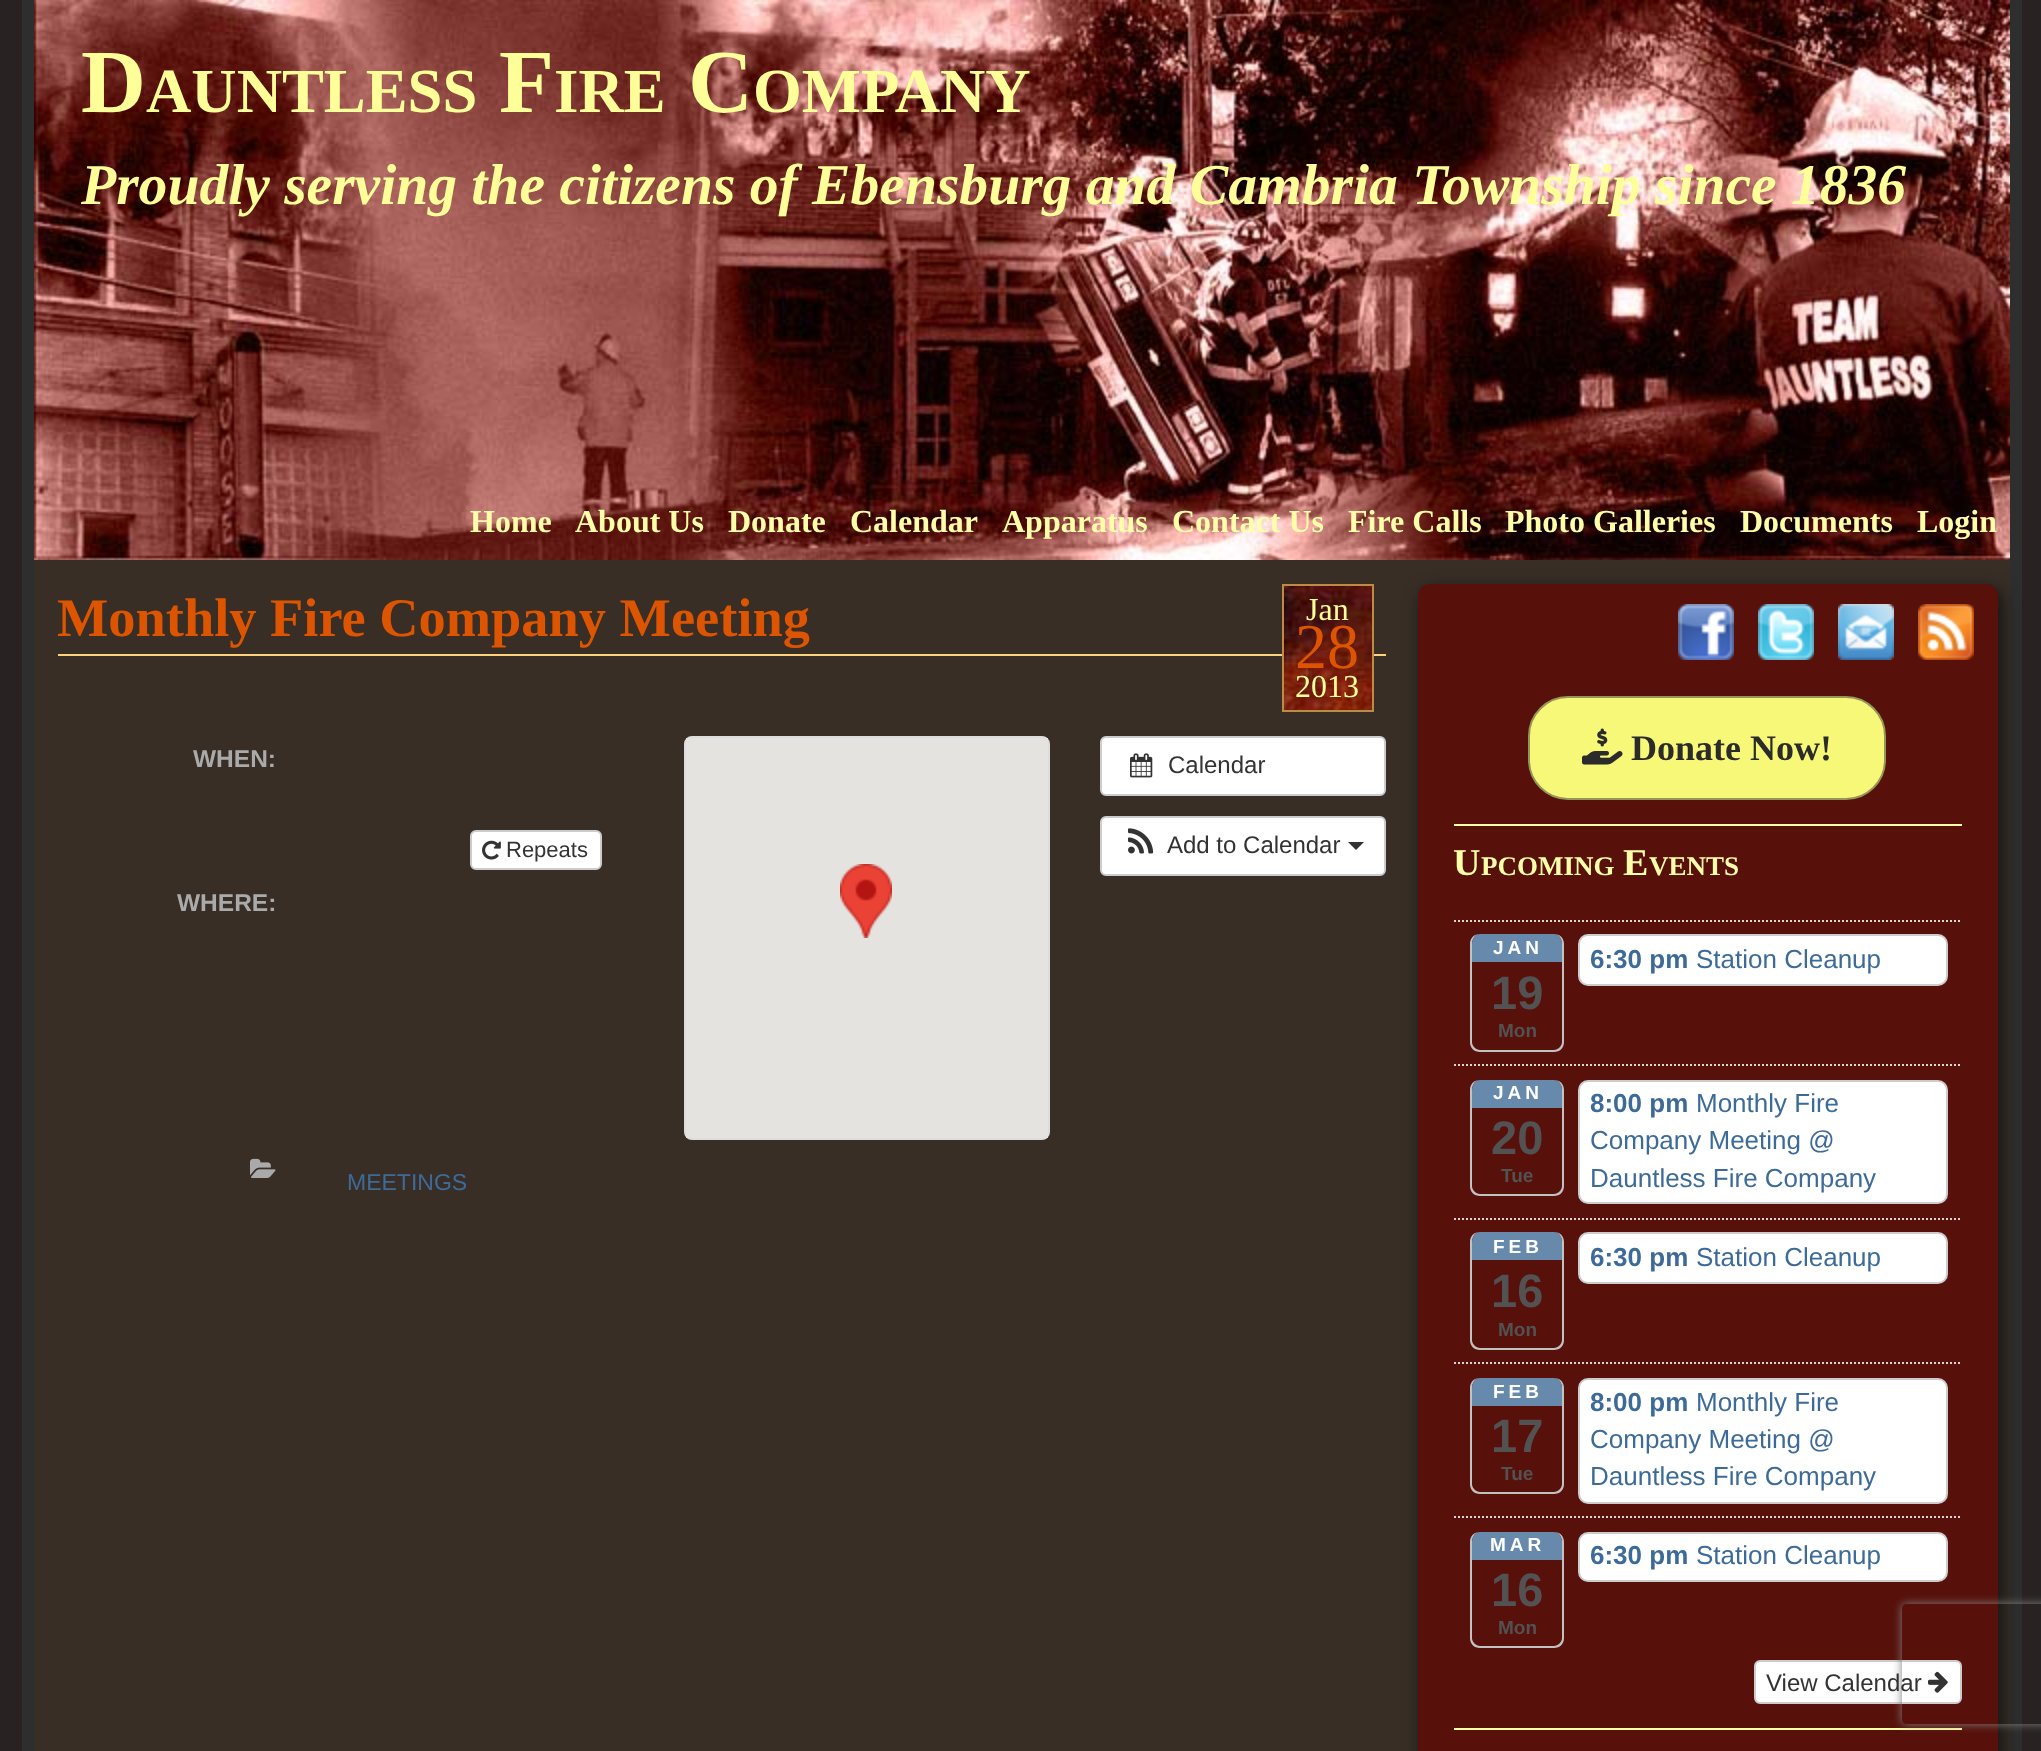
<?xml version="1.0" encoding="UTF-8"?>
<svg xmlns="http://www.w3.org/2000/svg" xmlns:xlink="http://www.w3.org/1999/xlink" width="2041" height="1751">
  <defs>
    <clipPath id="clip1"><path d="M 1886 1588 h 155 v 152 h -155 z m 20 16 h 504 c 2 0 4 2 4 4 v 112 c 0 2 -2 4 -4 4 h -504 c -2 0 -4 -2 -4 -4 v -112 c 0 -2 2 -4 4 -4 z" clip-rule="evenodd" /></clipPath>
  </defs>
  <rect width="100%" height="100%" fill="#282222" />
  <rect x="34" y="560" width="1976" height="1191" fill="#382e26" />
  <rect x="2010" width="12" height="1751" fill="#2e2e2e" />
  <rect x="22" width="12" height="1751" fill="#2e2e2e" />
  <image x="34" y="0" width="1976" height="560" xlink:href="image1.png" />
  <rect x="58" y="654" width="1328" height="2" fill="#fcd27c" />
  <image x="1284" y="586" width="88" height="124" xlink:href="image2.png" />
  <rect x="1283" y="585" width="90" height="126" fill="none" stroke="#bc8c44" stroke-width="2" />
  <rect x="471" y="831" width="130" height="38" rx="5" fill="#ffffff" stroke="#cccccc" stroke-width="2" />
  <image x="482" y="840" width="19" height="20" xlink:href="image3.png" />
  <image x="250" y="1158" width="26" height="20" xlink:href="image4.png" />
  <rect x="685" y="737" width="364" height="402" rx="7" fill="none" stroke="#dddddd" stroke-width="2" />
  <rect x="686" y="738" width="362" height="400" fill="#e5e3df" />
  <image x="840" y="864" width="52" height="74" xlink:href="image5.png" />
  <rect x="1101" y="737" width="284" height="58" rx="5" fill="#ffffff" stroke="#cccccc" stroke-width="2" />
  <image x="1130" y="753" width="23" height="25" xlink:href="image6.png" />
  <rect x="1101" y="817" width="284" height="58" rx="5" fill="#ffffff" stroke="#cccccc" stroke-width="2" />
  <image x="1128" y="828" width="26" height="26" xlink:href="image7.png" />
  <path d="M 1348 842 h 16 l -8 8 z" fill="#333333" />
  <rect x="1422" y="590" width="580" height="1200" rx="12" fill="#111111" filter="blur(9px)" />
  <rect x="1418" y="584" width="580" height="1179" rx="12" fill="#57100a" />
  <image x="1678" y="604" width="56" height="56" xlink:href="image8.png" />
  <image x="1758" y="604" width="56" height="56" xlink:href="image9.png" />
  <image x="1838" y="604" width="56" height="56" xlink:href="image10.png" />
  <image x="1918" y="604" width="56" height="56" xlink:href="image11.png" />
  <rect x="1529" y="697" width="356" height="102" rx="39" fill="#f8f878" stroke="#96965a" stroke-width="2" />
  <image x="1582" y="728" width="41" height="37" xlink:href="image12.png" />
  <rect x="1454" y="824" width="508" height="2" fill="#ffffaa" />
  <path d="M 1454 921 h 508" fill="none" stroke="#d6d6d6" stroke-width="2" stroke-dasharray="2 2" />
  <path d="M 1480 934 h 74 c 6 0 10 4 10 10 v 98 c 0 6 -4 10 -10 10 h -74 c -6 0 -10 -4 -10 -10 v -98 c 0 -6 4 -10 10 -10 z m 0 0 h 74 c 4 0 8 4 8 10 v 98 c 0 4 -4 8 -8 8 h -74 c -4 0 -8 -4 -8 -8 v -98 c 0 -6 4 -10 8 -10 z" fill="#c2c2c2" fill-rule="evenodd" />
  <path d="M 1480 934 c -4 0 -8 4 -8 10 v 18 h 90 v -18 c 0 -6 -4 -10 -8 -10 z" fill="#6689ac" />
  <rect x="1579" y="935" width="368" height="50" rx="9" fill="#ffffff" stroke="#cccccc" stroke-width="2" />
  <path d="M 1454 1065 h 508" fill="none" stroke="#d6d6d6" stroke-width="2" stroke-dasharray="2 2" />
  <path d="M 1480 1080 h 74 c 6 0 10 4 10 10 v 96 c 0 6 -4 10 -10 10 h -74 c -6 0 -10 -4 -10 -10 v -96 c 0 -6 4 -10 10 -10 z m 0 0 h 74 c 4 0 8 4 8 10 v 96 c 0 4 -4 8 -8 8 h -74 c -4 0 -8 -4 -8 -8 v -96 c 0 -6 4 -10 8 -10 z" fill="#c2c2c2" fill-rule="evenodd" />
  <path d="M 1480 1080 c -4 0 -8 4 -8 10 v 18 h 90 v -18 c 0 -6 -4 -10 -8 -10 z" fill="#6689ac" />
  <rect x="1579" y="1081" width="368" height="122" rx="9" fill="#ffffff" stroke="#cccccc" stroke-width="2" />
  <path d="M 1454 1219 h 508" fill="none" stroke="#d6d6d6" stroke-width="2" stroke-dasharray="2 2" />
  <path d="M 1480 1232 h 74 c 6 0 10 4 10 10 v 98 c 0 6 -4 10 -10 10 h -74 c -6 0 -10 -4 -10 -10 v -98 c 0 -6 4 -10 10 -10 z m 0 0 h 74 c 4 0 8 4 8 10 v 98 c 0 4 -4 8 -8 8 h -74 c -4 0 -8 -4 -8 -8 v -98 c 0 -6 4 -10 8 -10 z" fill="#c2c2c2" fill-rule="evenodd" />
  <path d="M 1480 1232 c -4 0 -8 4 -8 10 v 18 h 90 v -18 c 0 -6 -4 -10 -8 -10 z" fill="#6689ac" />
  <rect x="1579" y="1233" width="368" height="50" rx="9" fill="#ffffff" stroke="#cccccc" stroke-width="2" />
  <path d="M 1454 1363 h 508" fill="none" stroke="#d6d6d6" stroke-width="2" stroke-dasharray="2 2" />
  <path d="M 1480 1378 h 74 c 6 0 10 4 10 10 v 96 c 0 6 -4 10 -10 10 h -74 c -6 0 -10 -4 -10 -10 v -96 c 0 -6 4 -10 10 -10 z m 0 0 h 74 c 4 0 8 4 8 10 v 96 c 0 4 -4 8 -8 8 h -74 c -4 0 -8 -4 -8 -8 v -96 c 0 -6 4 -10 8 -10 z" fill="#c2c2c2" fill-rule="evenodd" />
  <path d="M 1480 1378 c -4 0 -8 4 -8 10 v 18 h 90 v -18 c 0 -6 -4 -10 -8 -10 z" fill="#6689ac" />
  <rect x="1579" y="1379" width="368" height="124" rx="9" fill="#ffffff" stroke="#cccccc" stroke-width="2" />
  <path d="M 1454 1517 h 508" fill="none" stroke="#d6d6d6" stroke-width="2" stroke-dasharray="2 2" />
  <path d="M 1480 1532 h 74 c 6 0 10 4 10 10 v 96 c 0 6 -4 10 -10 10 h -74 c -6 0 -10 -4 -10 -10 v -96 c 0 -6 4 -10 10 -10 z m 0 0 h 74 c 4 0 8 4 8 10 v 96 c 0 4 -4 8 -8 8 h -74 c -4 0 -8 -4 -8 -8 v -96 c 0 -6 4 -10 8 -10 z" fill="#c2c2c2" fill-rule="evenodd" />
  <path d="M 1480 1532 c -4 0 -8 4 -8 10 v 18 h 90 v -18 c 0 -6 -4 -10 -8 -10 z" fill="#6689ac" />
  <rect x="1579" y="1533" width="368" height="48" rx="9" fill="#ffffff" stroke="#cccccc" stroke-width="2" />
  <rect x="1755" y="1661" width="206" height="42" rx="5" fill="#ffffff" stroke="#cccccc" stroke-width="2" />
  <image x="1928" y="1671" width="20" height="22" xlink:href="image13.png" />
  <rect x="1454" y="1728" width="508" height="2" fill="#ffffaa" />
  <g clip-path="url(#clip1)">
    <rect x="1902" y="1604" width="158" height="120" rx="4" fill="#808080" filter="blur(5px)" />
  </g>
  <text x="81" y="112" style="font-family: Liberation Serif; font-size: 90px; font-weight: bold; fill: #ffff99">D</text>
  <text x="146" y="112" style="font-family: Liberation Serif; font-size: 62.75px; font-weight: bold; fill: #ffff99">AUNTLESS</text>
  <text x="499" y="112" style="font-family: Liberation Serif; font-size: 90px; font-weight: bold; fill: #ffff99">F</text>
  <text x="554" y="112" style="font-family: Liberation Serif; font-size: 62.75px; font-weight: bold; fill: #ffff99">IRE</text>
  <text x="688" y="112" style="font-family: Liberation Serif; font-size: 90px; font-weight: bold; fill: #ffff99">C</text>
  <text x="753" y="112" style="font-family: Liberation Serif; font-size: 62.75px; font-weight: bold; fill: #ffff99">OMPANY</text>
  <text x="81" y="204" style="font-family: Liberation Serif; font-size: 57.6px; font-weight: bold; font-style: italic; fill: #ffff99">Proudly serving the citizens of Ebensburg and Cambria Township since 1836</text>
  <text x="470" y="532" style="font-family: Liberation Serif; font-size: 32px; font-weight: bold; fill: #ffffaa">Home</text>
  <text x="575" y="532" style="font-family: Liberation Serif; font-size: 32px; font-weight: bold; fill: #ffffaa">About Us</text>
  <text x="728" y="532" style="font-family: Liberation Serif; font-size: 32px; font-weight: bold; fill: #ffffaa">Donate</text>
  <text x="850" y="532" style="font-family: Liberation Serif; font-size: 32px; font-weight: bold; fill: #ffffaa">Calendar</text>
  <text x="1002" y="532" style="font-family: Liberation Serif; font-size: 32px; font-weight: bold; fill: #ffffaa">Apparatus</text>
  <text x="1172" y="532" style="font-family: Liberation Serif; font-size: 32px; font-weight: bold; fill: #ffffaa">Contact Us</text>
  <text x="1348" y="532" style="font-family: Liberation Serif; font-size: 32px; font-weight: bold; fill: #ffffaa">Fire Calls</text>
  <text x="1505" y="532" style="font-family: Liberation Serif; font-size: 32px; font-weight: bold; fill: #ffffaa">Photo Galleries</text>
  <text x="1740" y="532" style="font-family: Liberation Serif; font-size: 32px; font-weight: bold; fill: #ffffaa">Documents</text>
  <text x="1917" y="532" style="font-family: Liberation Serif; font-size: 32px; font-weight: bold; fill: #ffffaa">Login</text>
  <text x="57" y="636" style="font-family: Liberation Serif; font-size: 54.4px; font-weight: bold; fill: #dd5500">Monthly Fire Company Meeting</text>
  <text x="1306" y="620" style="font-family: Liberation Serif; font-size: 32px; fill: #ffff99">Jan</text>
  <text x="1295" y="668" style="font-family: Liberation Serif; font-size: 64px; fill: #dd5500">28</text>
  <text x="1295" y="697" style="font-family: Liberation Serif; font-size: 32px; fill: #ffff99">2013</text>
  <text x="193" y="767" style="font-family: Liberation Sans; font-size: 24.5px; font-weight: bold; fill: #aaaaaa">WHEN:</text>
  <text x="506" y="857" style="font-family: Liberation Sans; font-size: 22px; fill: #333333">Repeats</text>
  <text x="177" y="911" style="font-family: Liberation Sans; font-size: 24.5px; font-weight: bold; fill: #aaaaaa">WHERE:</text>
  <text x="347" y="1190" style="font-family: Liberation Sans; font-size: 23px; fill: #3d6b99">MEETINGS</text>
  <text x="1168" y="773" style="font-family: Liberation Sans; font-size: 24px; fill: #333333">Calendar</text>
  <text x="1167" y="853" style="font-family: Liberation Sans; font-size: 24px; fill: #333333">Add to Calendar</text>
  <text x="1631" y="760" style="font-family: Liberation Serif; font-size: 36px; font-weight: bold; fill: #2b2b2b">Donate Now!</text>
  <text x="1453" y="875" style="font-family: Liberation Serif; font-size: 38px; font-weight: bold; fill: #ffffaa">U</text>
  <text x="1481" y="875" style="font-family: Liberation Serif; font-size: 27px; font-weight: bold; fill: #ffffaa">PCOMING</text>
  <text x="1623" y="875" style="font-family: Liberation Serif; font-size: 38px; font-weight: bold; fill: #ffffaa">E</text>
  <text x="1649" y="875" style="font-family: Liberation Serif; font-size: 27px; font-weight: bold; fill: #ffffaa">VENTS</text>
  <text x="1493" y="954" style="font-family: Liberation Sans; font-size: 19px; font-weight: bold; letter-spacing: 4px; fill: #ffffff">JAN</text>
  <text x="1491" y="1009" style="font-family: Liberation Sans; font-size: 47px; font-weight: bold; fill: #525252">19</text>
  <text x="1498" y="1037" style="font-family: Liberation Sans; font-size: 19px; font-weight: bold; fill: #525252">Mon</text>
  <text x="1590" y="968" style="font-family: Liberation Sans; font-size: 26px; font-weight: bold; fill: #3d6b99">6:30 pm</text>
  <text x="1696" y="968" style="font-family: Liberation Sans; font-size: 26px; fill: #3d6b99">Station Cleanup</text>
  <text x="1493" y="1099" style="font-family: Liberation Sans; font-size: 19px; font-weight: bold; letter-spacing: 4px; fill: #ffffff">JAN</text>
  <text x="1491" y="1154" style="font-family: Liberation Sans; font-size: 47px; font-weight: bold; fill: #525252">20</text>
  <text x="1501" y="1182" style="font-family: Liberation Sans; font-size: 19px; font-weight: bold; fill: #525252">Tue</text>
  <text x="1590" y="1112" style="font-family: Liberation Sans; font-size: 26px; font-weight: bold; fill: #3d6b99">8:00 pm</text>
  <text x="1696" y="1112" style="font-family: Liberation Sans; font-size: 26px; fill: #3d6b99">Monthly Fire</text>
  <text x="1590" y="1149" style="font-family: Liberation Sans; font-size: 26px; fill: #3d6b99">Company Meeting @</text>
  <text x="1590" y="1187" style="font-family: Liberation Sans; font-size: 26px; fill: #3d6b99">Dauntless Fire Company</text>
  <text x="1493" y="1253" style="font-family: Liberation Sans; font-size: 19px; font-weight: bold; letter-spacing: 4px; fill: #ffffff">FEB</text>
  <text x="1491" y="1307" style="font-family: Liberation Sans; font-size: 47px; font-weight: bold; fill: #525252">16</text>
  <text x="1498" y="1336" style="font-family: Liberation Sans; font-size: 19px; font-weight: bold; fill: #525252">Mon</text>
  <text x="1590" y="1266" style="font-family: Liberation Sans; font-size: 26px; font-weight: bold; fill: #3d6b99">6:30 pm</text>
  <text x="1696" y="1266" style="font-family: Liberation Sans; font-size: 26px; fill: #3d6b99">Station Cleanup</text>
  <text x="1493" y="1398" style="font-family: Liberation Sans; font-size: 19px; font-weight: bold; letter-spacing: 4px; fill: #ffffff">FEB</text>
  <text x="1491" y="1452" style="font-family: Liberation Sans; font-size: 47px; font-weight: bold; fill: #525252">17</text>
  <text x="1501" y="1480" style="font-family: Liberation Sans; font-size: 19px; font-weight: bold; fill: #525252">Tue</text>
  <text x="1590" y="1411" style="font-family: Liberation Sans; font-size: 26px; font-weight: bold; fill: #3d6b99">8:00 pm</text>
  <text x="1696" y="1411" style="font-family: Liberation Sans; font-size: 26px; fill: #3d6b99">Monthly Fire</text>
  <text x="1590" y="1448" style="font-family: Liberation Sans; font-size: 26px; fill: #3d6b99">Company Meeting @</text>
  <text x="1590" y="1485" style="font-family: Liberation Sans; font-size: 26px; fill: #3d6b99">Dauntless Fire Company</text>
  <text x="1490" y="1551" style="font-family: Liberation Sans; font-size: 19px; font-weight: bold; letter-spacing: 4px; fill: #ffffff">MAR</text>
  <text x="1491" y="1606" style="font-family: Liberation Sans; font-size: 47px; font-weight: bold; fill: #525252">16</text>
  <text x="1498" y="1634" style="font-family: Liberation Sans; font-size: 19px; font-weight: bold; fill: #525252">Mon</text>
  <text x="1590" y="1564" style="font-family: Liberation Sans; font-size: 26px; font-weight: bold; fill: #3d6b99">6:30 pm</text>
  <text x="1696" y="1564" style="font-family: Liberation Sans; font-size: 26px; fill: #3d6b99">Station Cleanup</text>
  <text x="1766" y="1691" style="font-family: Liberation Sans; font-size: 24px; fill: #333333">View Calendar</text>
</svg>
